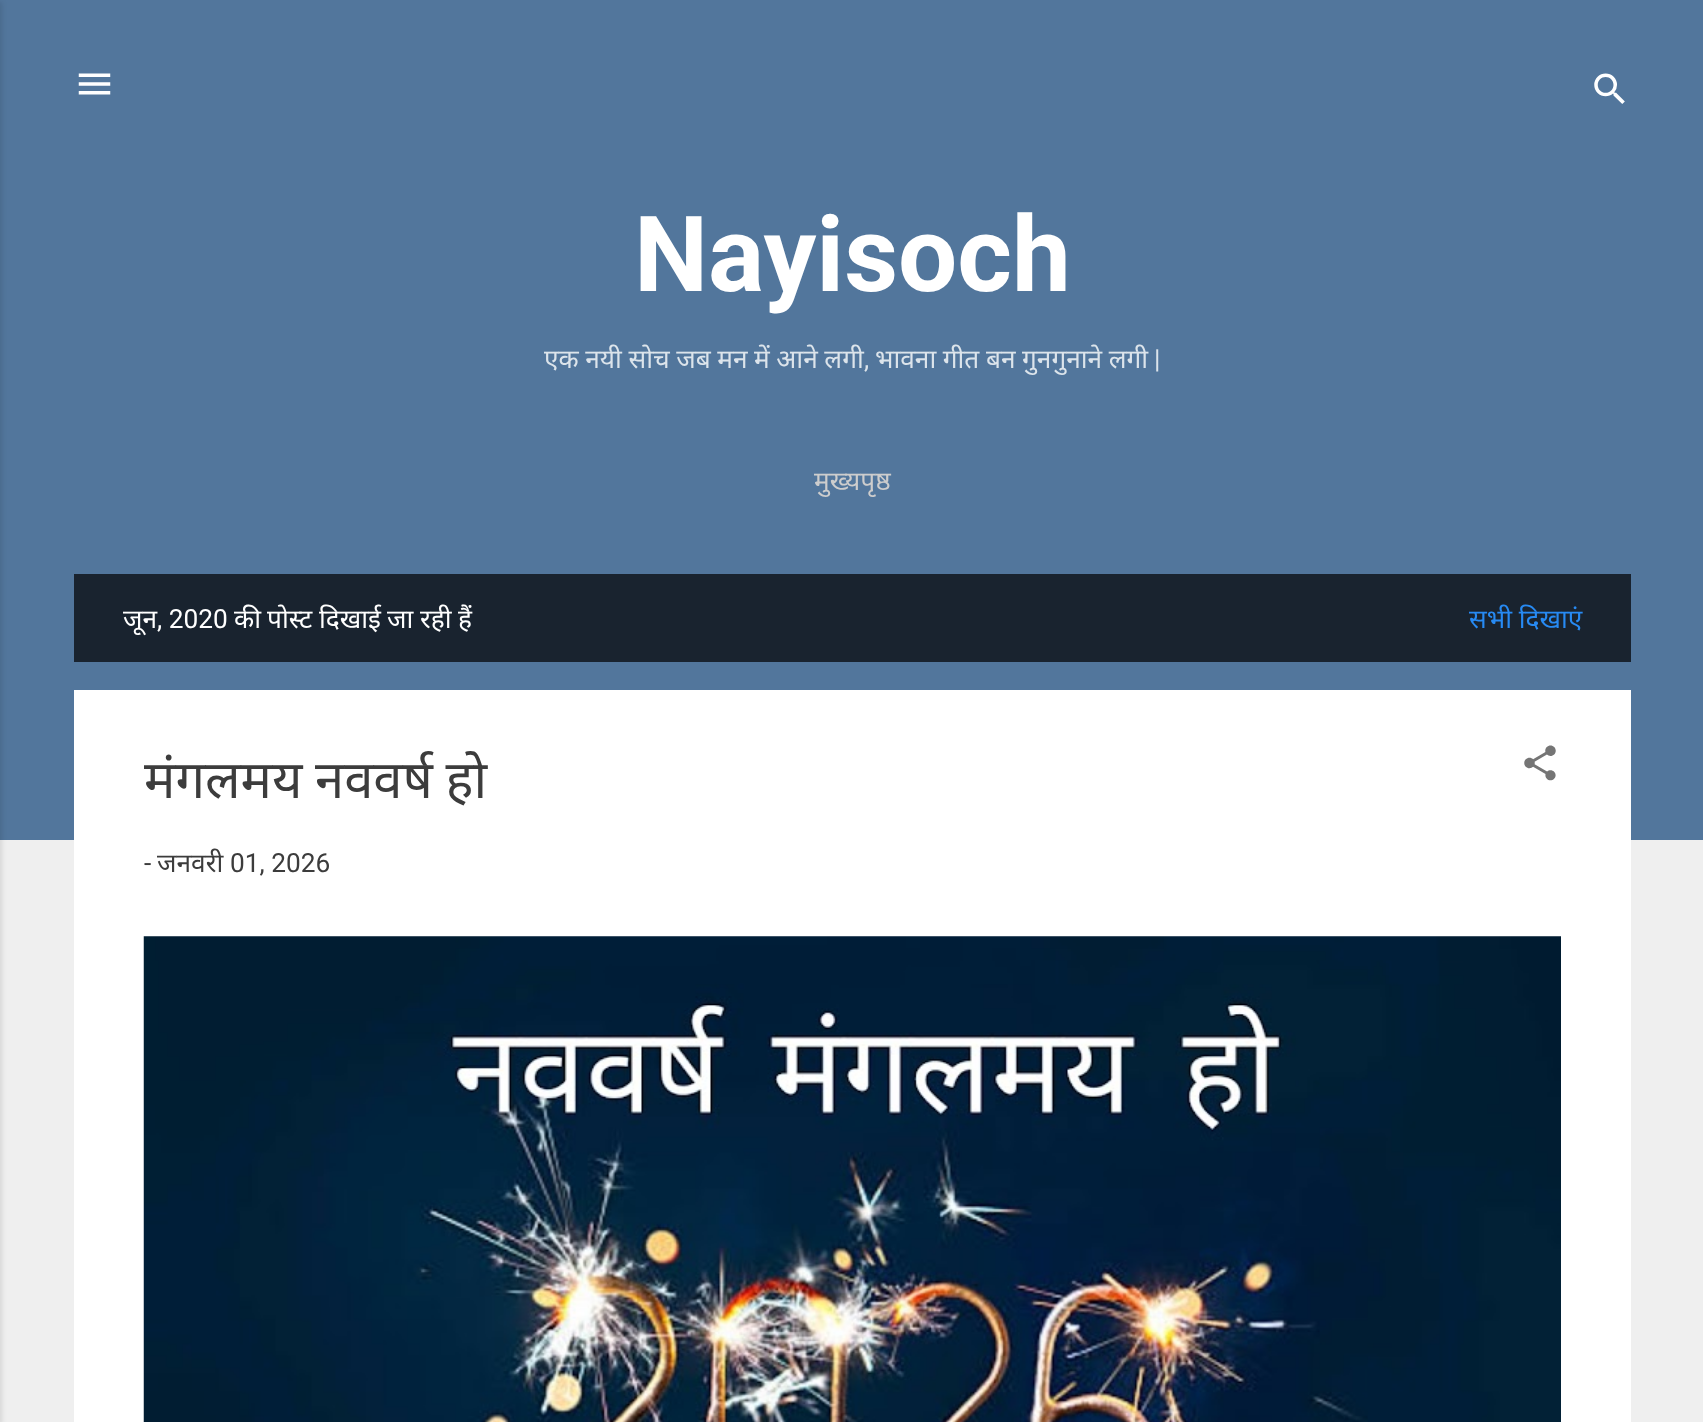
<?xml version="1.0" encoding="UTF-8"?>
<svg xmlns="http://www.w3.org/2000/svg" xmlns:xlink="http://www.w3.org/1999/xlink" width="1703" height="1422">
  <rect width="100%" height="100%" fill="#efefef" />
  <rect width="1703" height="840" fill="#52769c" />
  <rect x="-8" y="2" width="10" height="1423" fill="#000000" fill-opacity="0.1" filter="blur(2.5px)" />
  <image x="78" y="73" width="33" height="22" xlink:href="image1.png" />
  <image x="1594" y="73" width="31" height="31" xlink:href="image2.png" />
  <rect x="74" y="574" width="1557" height="88" fill="#19232f" />
  <rect x="74" y="690" width="1557" height="732" fill="#ffffff" />
  <image x="1524" y="745" width="32" height="36" xlink:href="image3.png" />
  <image x="143" y="936" width="1418" height="486" xlink:href="image4.png" />
  <text x="634" y="291" style="font-family: Roboto; font-size: 105px; font-weight: bold; fill: #ffffff">Nayisoch</text>
  <text x="544" y="368" word-spacing="-0.25" style="font-family: Noto Sans; font-size: 26.25px; fill: #dce4eb">एक नयी सोच जब मन में आने लगी</text>
  <text x="864" y="368" style="font-family: Roboto; font-size: 26.25px; fill: #dce4eb">,</text>
  <text x="875" y="368" word-spacing="-0.25" style="font-family: Noto Sans; font-size: 26.25px; fill: #dce4eb">भावना गीत बन गुनगुनाने लगी</text>
  <text x="1154" y="368" style="font-family: Roboto; font-size: 26.25px; fill: #dce4eb">|</text>
  <text x="814" y="490" style="font-family: Noto Sans; font-size: 26.25px; fill: #cdcdcd">मुख्यपृष्ठ</text>
  <text x="123" y="628" style="font-family: Noto Sans; font-size: 26.25px; fill: #ffffff">जून</text>
  <text x="157" y="628" style="font-family: Roboto; font-size: 26.25px; fill: #ffffff">, 2020</text>
  <text x="234" y="628" style="font-family: Noto Sans; font-size: 26.25px; fill: #ffffff">की</text>
  <text x="267" y="628" style="font-family: Noto Sans; font-size: 26.25px; fill: #ffffff">पोस्ट</text>
  <text x="319" y="628" style="font-family: Noto Sans; font-size: 26.25px; fill: #ffffff">दिखाई</text>
  <text x="387" y="628" style="font-family: Noto Sans; font-size: 26.25px; fill: #ffffff">जा</text>
  <text x="420" y="628" style="font-family: Noto Sans; font-size: 26.25px; fill: #ffffff">रही</text>
  <text x="458" y="628" style="font-family: Noto Sans; font-size: 26.25px; fill: #ffffff">हैं</text>
  <text x="1469" y="628" style="font-family: Noto Sans; font-size: 26.25px; fill: #278af3">सभी दिखाएं</text>
  <text x="144" y="798" word-spacing="-1" style="font-family: Noto Sans; font-size: 52.5px; fill: #3c3c3c">मंगलमय नववर्ष हो</text>
  <text x="144" y="872" style="font-family: Roboto; font-size: 26.25px; fill: #3c3c3c">-</text>
  <text x="157" y="872" style="font-family: Noto Sans; font-size: 26.25px; fill: #3c3c3c">जनवरी</text>
  <text x="230" y="872" style="font-family: Roboto; font-size: 26.25px; fill: #3c3c3c">01, 2026</text>
</svg>
